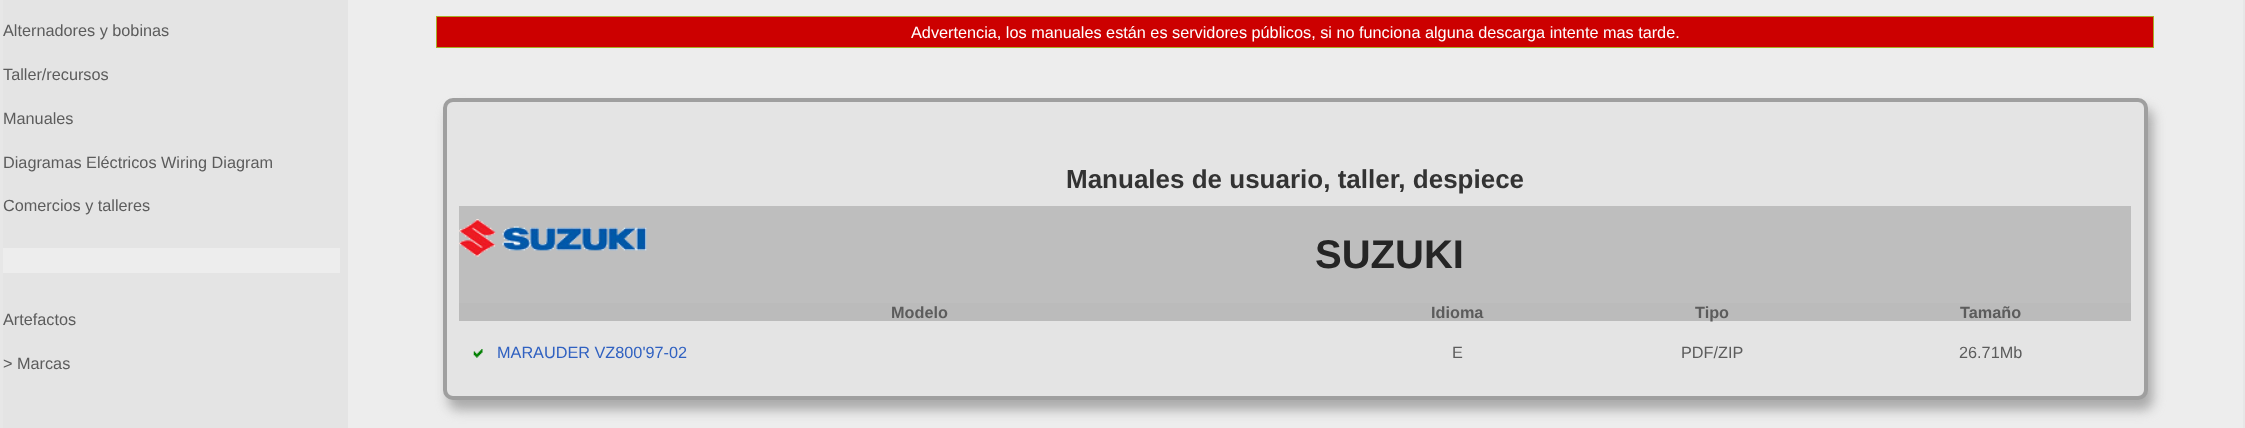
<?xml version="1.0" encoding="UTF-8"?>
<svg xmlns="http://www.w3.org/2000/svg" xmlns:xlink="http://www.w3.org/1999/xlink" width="2245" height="428">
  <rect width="100%" height="100%" fill="#e7e7e7" />
  <rect x="3" width="345" height="428" fill="#e4e4e4" />
  <rect x="3" y="248" width="337" height="25" fill="#ededed" />
  <rect x="348" width="1895" height="428" fill="#ededed" />
  <rect x="436.5" y="16.5" width="1717" height="31" fill="#cc0000" stroke="#aaad25" />
  <rect x="448" y="108" width="1705" height="302" rx="10" fill="#aaaaaa" filter="blur(6px)" />
  <rect x="445" y="100" width="1701" height="298" rx="8" fill="#e4e4e4" stroke="#9f9f9f" stroke-width="4" />
  <rect x="459" y="206" width="1672" height="97" fill="#bebebe" />
  <image x="458" y="219" width="189" height="38" xlink:href="image1.png" />
  <rect x="459" y="303" width="1672" height="18" fill="#bbbbbb" />
  <image x="473" y="349" width="10" height="9" xlink:href="image2.png" />
  <text x="3" y="36" style="font-family: Liberation Sans; font-size: 16.25px; fill: #5c5c5c">Alternadores y bobinas</text>
  <text x="3" y="80" style="font-family: Liberation Sans; font-size: 16.25px; fill: #5c5c5c">Taller/recursos</text>
  <text x="3" y="124" style="font-family: Liberation Sans; font-size: 16.25px; fill: #5c5c5c">Manuales</text>
  <text x="3" y="168" style="font-family: Liberation Sans; font-size: 16.25px; fill: #5c5c5c">Diagramas Eléctricos Wiring Diagram</text>
  <text x="3" y="211" style="font-family: Liberation Sans; font-size: 16.25px; fill: #5c5c5c">Comercios y talleres</text>
  <text x="3" y="325" style="font-family: Liberation Sans; font-size: 16.25px; fill: #5c5c5c">Artefactos</text>
  <text x="3" y="369" style="font-family: Liberation Sans; font-size: 16.25px; fill: #5c5c5c">&gt; Marcas</text>
  <text x="911" y="38" style="font-family: Liberation Sans; font-size: 16.25px; fill: #ffffff">Advertencia, los manuales están es servidores públicos, si no funciona alguna descarga intente mas tarde.</text>
  <text x="1066" y="188" style="font-family: Liberation Sans; font-size: 26px; font-weight: bold; fill: #333333">Manuales de usuario, taller, despiece</text>
  <text x="1315" y="268" style="font-family: Liberation Sans; font-size: 40px; font-weight: bold; fill: #252525">SUZUKI</text>
  <text x="891" y="318" style="font-family: Liberation Sans; font-size: 16.25px; font-weight: bold; fill: #5c5c5c">Modelo</text>
  <text x="1431" y="318" style="font-family: Liberation Sans; font-size: 16.25px; font-weight: bold; fill: #5c5c5c">Idioma</text>
  <text x="1695" y="318" style="font-family: Liberation Sans; font-size: 16.25px; font-weight: bold; fill: #5c5c5c">Tipo</text>
  <text x="1960" y="318" style="font-family: Liberation Sans; font-size: 16.25px; font-weight: bold; fill: #5c5c5c">Tamaño</text>
  <text x="497" y="358" style="font-family: Liberation Sans; font-size: 16.25px; fill: #3061c1">MARAUDER VZ800'97-02</text>
  <text x="1452" y="358" style="font-family: Liberation Sans; font-size: 16.25px; fill: #5c5c5c">E</text>
  <text x="1681" y="358" style="font-family: Liberation Sans; font-size: 16.25px; fill: #5c5c5c">PDF/ZIP</text>
  <text x="1959" y="358" style="font-family: Liberation Sans; font-size: 16.25px; fill: #5c5c5c">26.71Mb</text>
</svg>
